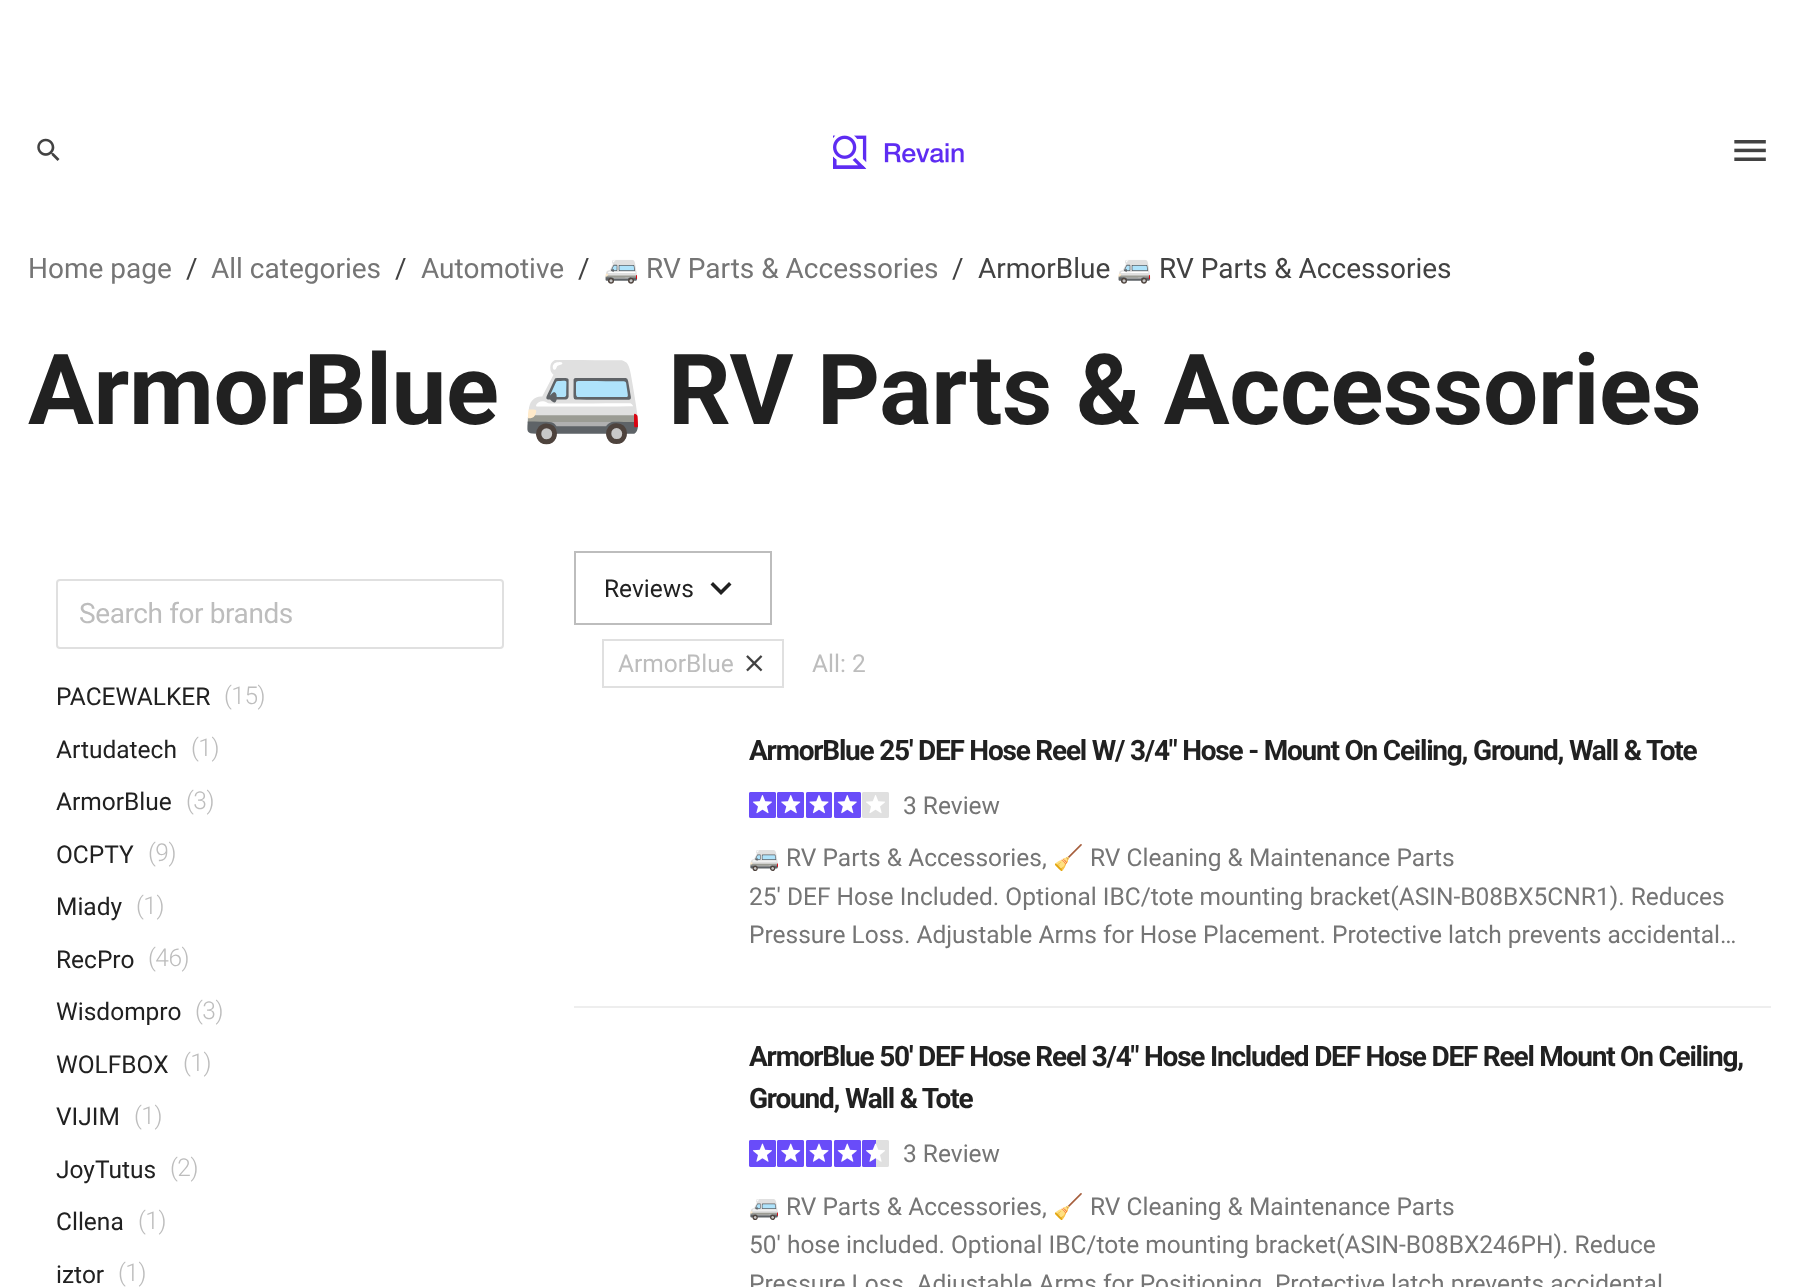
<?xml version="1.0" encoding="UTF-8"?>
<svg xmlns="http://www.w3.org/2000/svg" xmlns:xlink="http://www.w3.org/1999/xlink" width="1798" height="1287">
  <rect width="100%" height="100%" fill="#ffffff" />
  <image x="37" y="138" width="23" height="23" xlink:href="image1.png" />
  <image x="833" y="135" width="131" height="34" xlink:href="image2.png" />
  <image x="1734" y="140" width="32" height="21" xlink:href="image3.png" />
  <rect x="57" y="580" width="446" height="68" rx="3" fill="none" stroke="#e0e0e0" stroke-width="2" />
  <rect x="575" y="552" width="196" height="72" fill="none" stroke="#bdbdbd" stroke-width="2" />
  <path d="M 713 582 l 8 8 l 8 -8 l 2.5 2.5 l -10.5 10.5 l -10.5 -10.5 z" fill="#212121" />
  <rect x="603" y="640" width="180" height="47" fill="none" stroke="#e0e0e0" stroke-width="2" />
  <image x="746" y="655" width="17" height="17" xlink:href="image4.png" />
  <rect x="574" y="1006" width="1197" height="2" fill="#eeeeee" />
  <image x="749" y="792" width="140" height="26" xlink:href="image5.png" />
  <image x="749" y="1140" width="140" height="27" xlink:href="image6.png" />
  <text x="28" y="278" style="font-family: Roboto; font-size: 28px; fill: #757575">Home page</text>
  <text x="186" y="278" style="font-family: Roboto; font-size: 28px; fill: #424242">/</text>
  <text x="211" y="278" style="font-family: Roboto; font-size: 28px; fill: #757575">All categories</text>
  <text x="395" y="278" style="font-family: Roboto; font-size: 28px; fill: #424242">/</text>
  <text x="421" y="278" style="font-family: Roboto; font-size: 28px; fill: #757575">Automotive</text>
  <text x="578" y="278" style="font-family: Roboto; font-size: 28px; fill: #424242">/</text>
  <text x="604" y="278" style="font-family: Noto Color Emoji; font-size: 28px; fill: #757575">🚐</text>
  <text x="646" y="278" style="font-family: Roboto; font-size: 28px; fill: #757575">RV Parts &amp; Accessories</text>
  <text x="952" y="278" style="font-family: Roboto; font-size: 28px; fill: #424242">/</text>
  <text x="978" y="278" style="font-family: Roboto; font-size: 28px; fill: #424242">ArmorBlue</text>
  <text x="1117" y="278" style="font-family: Noto Color Emoji; font-size: 28px; fill: #424242">🚐</text>
  <text x="1159" y="278" style="font-family: Roboto; font-size: 28px; fill: #424242">RV Parts &amp; Accessories</text>
  <text x="28" y="424" style="font-family: Roboto; font-size: 98px; font-weight: bold; letter-spacing: -0.4px; fill: #212121">ArmorBlue</text>
  <text x="522" y="424" style="font-family: Noto Color Emoji; font-size: 98px; font-weight: bold; letter-spacing: -0.4px; fill: #212121">🚐</text>
  <text x="668" y="424" style="font-family: Roboto; font-size: 98px; font-weight: bold; letter-spacing: -0.4px; fill: #212121">RV Parts &amp; Accessories</text>
  <text x="79" y="623" style="font-family: Roboto; font-size: 28px; letter-spacing: -0.4px; fill: #bdbdbd">Search for brands</text>
  <text x="56" y="705" style="font-family: Roboto; font-size: 24.5px; fill: #212121">PACEWALKER</text>
  <text x="224" y="704" style="font-family: Roboto; font-size: 24.5px; font-weight: 300; letter-spacing: -0.5px; fill: #bdbdbd">(15)</text>
  <text x="56" y="758" style="font-family: Roboto; font-size: 24.5px; fill: #212121">Artudatech</text>
  <text x="191" y="756" style="font-family: Roboto; font-size: 24.5px; font-weight: 300; letter-spacing: -0.5px; fill: #bdbdbd">(1)</text>
  <text x="56" y="810" style="font-family: Roboto; font-size: 24.5px; fill: #212121">ArmorBlue</text>
  <text x="186" y="809" style="font-family: Roboto; font-size: 24.5px; font-weight: 300; letter-spacing: -0.5px; fill: #bdbdbd">(3)</text>
  <text x="56" y="863" style="font-family: Roboto; font-size: 24.5px; fill: #212121">OCPTY</text>
  <text x="148" y="861" style="font-family: Roboto; font-size: 24.5px; font-weight: 300; letter-spacing: -0.5px; fill: #bdbdbd">(9)</text>
  <text x="56" y="915" style="font-family: Roboto; font-size: 24.5px; fill: #212121">Miady</text>
  <text x="136" y="914" style="font-family: Roboto; font-size: 24.5px; font-weight: 300; letter-spacing: -0.5px; fill: #bdbdbd">(1)</text>
  <text x="56" y="968" style="font-family: Roboto; font-size: 24.5px; fill: #212121">RecPro</text>
  <text x="148" y="966" style="font-family: Roboto; font-size: 24.5px; font-weight: 300; letter-spacing: -0.5px; fill: #bdbdbd">(46)</text>
  <text x="56" y="1020" style="font-family: Roboto; font-size: 24.5px; fill: #212121">Wisdompro</text>
  <text x="195" y="1019" style="font-family: Roboto; font-size: 24.5px; font-weight: 300; letter-spacing: -0.5px; fill: #bdbdbd">(3)</text>
  <text x="56" y="1073" style="font-family: Roboto; font-size: 24.5px; fill: #212121">WOLFBOX</text>
  <text x="183" y="1071" style="font-family: Roboto; font-size: 24.5px; font-weight: 300; letter-spacing: -0.5px; fill: #bdbdbd">(1)</text>
  <text x="56" y="1125" style="font-family: Roboto; font-size: 24.5px; fill: #212121">VIJIM</text>
  <text x="134" y="1124" style="font-family: Roboto; font-size: 24.5px; font-weight: 300; letter-spacing: -0.5px; fill: #bdbdbd">(1)</text>
  <text x="56" y="1178" style="font-family: Roboto; font-size: 24.5px; fill: #212121">JoyTutus</text>
  <text x="170" y="1176" style="font-family: Roboto; font-size: 24.5px; font-weight: 300; letter-spacing: -0.5px; fill: #bdbdbd">(2)</text>
  <text x="56" y="1230" style="font-family: Roboto; font-size: 24.5px; fill: #212121">Cllena</text>
  <text x="138" y="1229" style="font-family: Roboto; font-size: 24.5px; font-weight: 300; letter-spacing: -0.5px; fill: #bdbdbd">(1)</text>
  <text x="56" y="1283" style="font-family: Roboto; font-size: 24.5px; fill: #212121">iztor</text>
  <text x="118" y="1281" style="font-family: Roboto; font-size: 24.5px; font-weight: 300; letter-spacing: -0.5px; fill: #bdbdbd">(1)</text>
  <text x="604" y="597" style="font-family: Roboto; font-size: 24.5px; fill: #212121">Reviews</text>
  <text x="618" y="672" style="font-family: Roboto; font-size: 24.5px; fill: #bdbdbd">ArmorBlue</text>
  <text x="812" y="672" style="font-family: Roboto; font-size: 24.5px; fill: #bdbdbd">All: 2</text>
  <text x="749" y="760" style="font-family: Roboto; font-size: 28px; font-weight: bold; letter-spacing: -1.22px; fill: #212121">ArmorBlue 25' DEF Hose Reel W/ 3/4" Hose - Mount On Ceiling, Ground, Wall &amp; Tote</text>
  <text x="903" y="814" style="font-family: Roboto; font-size: 24.5px; fill: #757575">3 Review</text>
  <text x="749" y="866" style="font-family: Noto Color Emoji; font-size: 24.5px; fill: #757575">🚐</text>
  <text x="786" y="866" style="font-family: Roboto; font-size: 24.5px; fill: #757575">RV Parts &amp; Accessories,</text>
  <text x="1053" y="866" style="font-family: Noto Color Emoji; font-size: 24.5px; fill: #757575">🧹</text>
  <text x="1090" y="866" style="font-family: Roboto; font-size: 24.5px; fill: #757575">RV Cleaning &amp; Maintenance Parts</text>
  <text x="749" y="905" style="font-family: Roboto; font-size: 24.5px; fill: #757575">25' DEF Hose Included. Optional IBC/tote mounting bracket(ASIN-B08BX5CNR1). Reduces</text>
  <text x="749" y="943" style="font-family: Roboto; font-size: 24.5px; fill: #757575">Pressure Loss. Adjustable Arms for Hose Placement. Protective latch prevents accidental…</text>
  <text x="749" y="1066" style="font-family: Roboto; font-size: 28px; font-weight: bold; letter-spacing: -1.22px; fill: #212121">ArmorBlue 50' DEF Hose Reel 3/4" Hose Included DEF Hose DEF Reel Mount On Ceiling,</text>
  <text x="749" y="1108" style="font-family: Roboto; font-size: 28px; font-weight: bold; letter-spacing: -1.22px; fill: #212121">Ground, Wall &amp; Tote</text>
  <text x="903" y="1162" style="font-family: Roboto; font-size: 24.5px; fill: #757575">3 Review</text>
  <text x="749" y="1215" style="font-family: Noto Color Emoji; font-size: 24.5px; fill: #757575">🚐</text>
  <text x="786" y="1215" style="font-family: Roboto; font-size: 24.5px; fill: #757575">RV Parts &amp; Accessories,</text>
  <text x="1053" y="1215" style="font-family: Noto Color Emoji; font-size: 24.5px; fill: #757575">🧹</text>
  <text x="1090" y="1215" style="font-family: Roboto; font-size: 24.5px; fill: #757575">RV Cleaning &amp; Maintenance Parts</text>
  <text x="749" y="1253" style="font-family: Roboto; font-size: 24.5px; fill: #757575">50' hose included. Optional IBC/tote mounting bracket(ASIN-B08BX246PH). Reduce</text>
  <text x="749" y="1292" style="font-family: Roboto; font-size: 24.5px; fill: #757575">Pressure Loss. Adjustable Arms for Positioning. Protective latch prevents accidental</text>
</svg>
